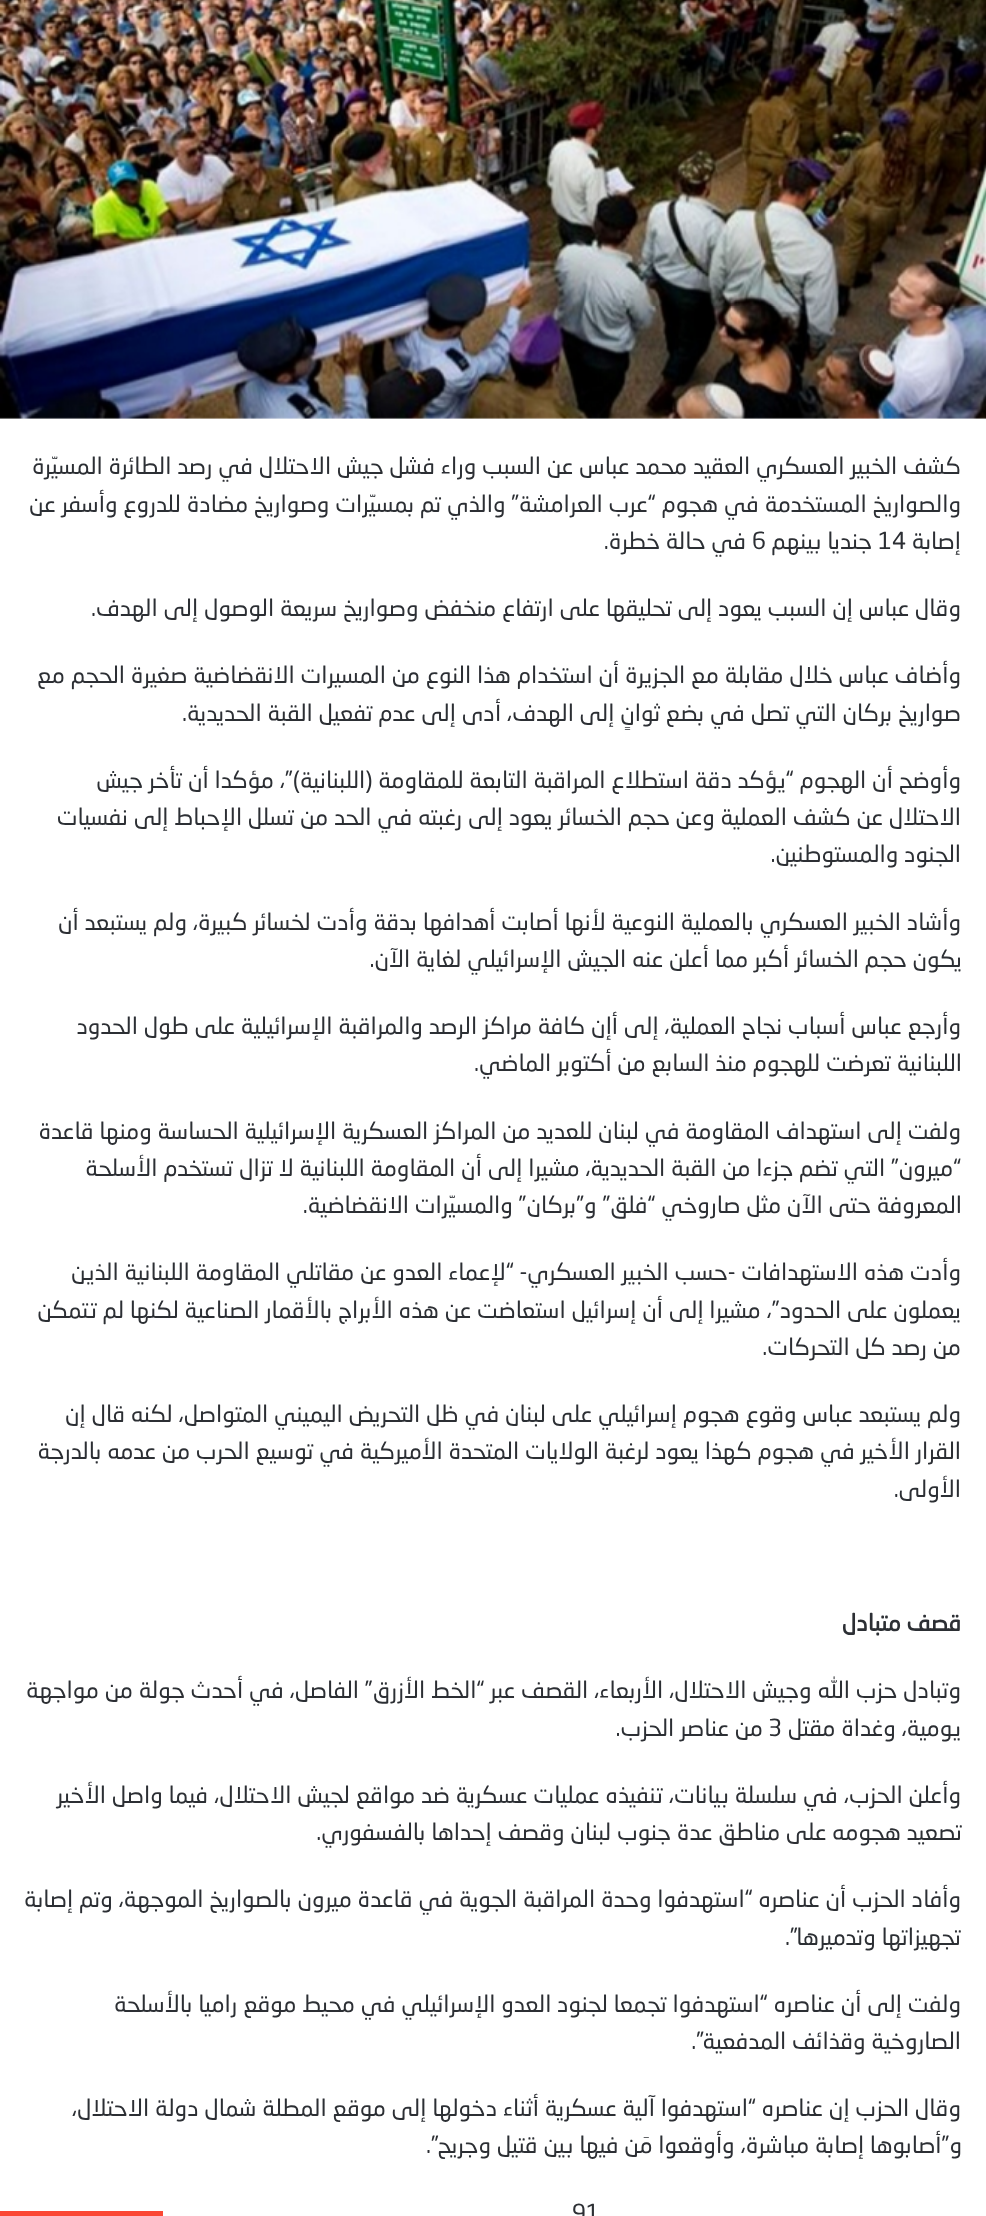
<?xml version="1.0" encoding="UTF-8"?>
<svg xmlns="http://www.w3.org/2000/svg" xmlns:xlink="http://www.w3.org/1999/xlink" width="986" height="2216">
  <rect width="100%" height="100%" fill="#ffffff" />
  <image x="0" y="0" width="986" height="419" xlink:href="image1.png" />
  <rect y="2211" width="163" height="5" fill="#fb4834" />
  <text x="961" y="474" style="font-family: 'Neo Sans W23'; font-size: 23.35px; direction: rtl; fill: #2c2f34">كشف الخبير العسكري العقيد محمد عباس عن السبب وراء فشل جيش الاحتلال في رصد الطائرة المسيّرة</text>
  <text x="961" y="512" style="font-family: 'Neo Sans W23'; font-size: 23.35px; direction: rtl; fill: #2c2f34">والصواريخ المستخدمة في هجوم “عرب العرامشة” والذي تم بمسيّرات وصواريخ مضادة للدروع وأسفر عن</text>
  <text x="961" y="549" style="font-family: 'Neo Sans W23'; font-size: 23.35px; direction: rtl; fill: #2c2f34">إصابة</text>
  <text x="878" y="549" style="font-family: 'Neo Sans W23'; font-size: 23.35px; fill: #2c2f34">14</text>
  <text x="872" y="549" style="font-family: 'Neo Sans W23'; font-size: 23.35px; direction: rtl; fill: #2c2f34">جنديا بينهم</text>
  <text x="752" y="549" style="font-family: 'Neo Sans W23'; font-size: 23.35px; fill: #2c2f34">6</text>
  <text x="746" y="549" style="font-family: 'Neo Sans W23'; font-size: 23.35px; direction: rtl; fill: #2c2f34">في حالة خطرة.</text>
  <text x="961" y="616" style="font-family: 'Neo Sans W23'; font-size: 23.35px; direction: rtl; fill: #2c2f34">وقال عباس إن السبب يعود إلى تحليقها على ارتفاع منخفض وصواريخ سريعة الوصول إلى الهدف.</text>
  <text x="961" y="683" style="font-family: 'Neo Sans W23'; font-size: 23.35px; direction: rtl; fill: #2c2f34">وأضاف عباس خلال مقابلة مع الجزيرة أن استخدام هذا النوع من المسيرات الانقضاضية صغيرة الحجم مع</text>
  <text x="961" y="721" style="font-family: 'Neo Sans W23'; font-size: 23.35px; direction: rtl; fill: #2c2f34">صواريخ بركان التي تصل في بضع ثوانٍ إلى الهدف، أدى إلى عدم تفعيل القبة الحديدية.</text>
  <text x="961" y="788" style="font-family: 'Neo Sans W23'; font-size: 23.35px; direction: rtl; fill: #2c2f34">وأوضح أن الهجوم “يؤكد دقة استطلاع المراقبة التابعة للمقاومة (اللبنانية)”، مؤكدا أن تأخر جيش</text>
  <text x="961" y="825" style="font-family: 'Neo Sans W23'; font-size: 23.35px; direction: rtl; fill: #2c2f34">الاحتلال عن كشف العملية وعن حجم الخسائر يعود إلى رغبته في الحد من تسلل الإحباط إلى نفسيات</text>
  <text x="961" y="862" style="font-family: 'Neo Sans W23'; font-size: 23.35px; direction: rtl; fill: #2c2f34">الجنود والمستوطنين.</text>
  <text x="961" y="930" style="font-family: 'Neo Sans W23'; font-size: 23.35px; direction: rtl; fill: #2c2f34">وأشاد الخبير العسكري بالعملية النوعية لأنها أصابت أهدافها بدقة وأدت لخسائر كبيرة، ولم يستبعد أن</text>
  <text x="962" y="967" style="font-family: 'Neo Sans W23'; font-size: 23.35px; direction: rtl; fill: #2c2f34">يكون حجم الخسائر أكبر مما أعلن عنه الجيش الإسرائيلي لغاية الآن.</text>
  <text x="961" y="1034" style="font-family: 'Neo Sans W23'; font-size: 23.35px; direction: rtl; fill: #2c2f34">وأرجع عباس أسباب نجاح العملية، إلى أإن كافة مراكز الرصد والمراقبة الإسرائيلية على طول الحدود</text>
  <text x="962" y="1071" style="font-family: 'Neo Sans W23'; font-size: 23.35px; direction: rtl; fill: #2c2f34">اللبنانية تعرضت للهجوم منذ السابع من أكتوبر الماضي.</text>
  <text x="961" y="1139" style="font-family: 'Neo Sans W23'; font-size: 23.35px; direction: rtl; fill: #2c2f34">ولفت إلى استهداف المقاومة في لبنان للعديد من المراكز العسكرية الإسرائيلية الحساسة ومنها قاعدة</text>
  <text x="961" y="1176" style="font-family: 'Neo Sans W23'; font-size: 23.35px; direction: rtl; fill: #2c2f34">“ميرون” التي تضم جزءا من القبة الحديدية، مشيرا إلى أن المقاومة اللبنانية لا تزال تستخدم الأسلحة</text>
  <text x="962" y="1213" style="font-family: 'Neo Sans W23'; font-size: 23.35px; direction: rtl; fill: #2c2f34">المعروفة حتى الآن مثل صاروخي “فلق” و”بركان” والمسيّرات الانقضاضية.</text>
  <text x="961" y="1280" style="font-family: 'Neo Sans W23'; font-size: 23.35px; direction: rtl; fill: #2c2f34">وأدت هذه الاستهدافات -حسب الخبير العسكري- “لإعماء العدو عن مقاتلي المقاومة اللبنانية الذين</text>
  <text x="961" y="1318" style="font-family: 'Neo Sans W23'; font-size: 23.35px; direction: rtl; fill: #2c2f34">يعملون على الحدود”، مشيرا إلى أن إسرائيل استعاضت عن هذه الأبراج بالأقمار الصناعية لكنها لم تتمكن</text>
  <text x="961" y="1355" style="font-family: 'Neo Sans W23'; font-size: 23.35px; direction: rtl; fill: #2c2f34">من رصد كل التحركات.</text>
  <text x="961" y="1422" style="font-family: 'Neo Sans W23'; font-size: 23.35px; direction: rtl; fill: #2c2f34">ولم يستبعد عباس وقوع هجوم إسرائيلي على لبنان في ظل التحريض اليميني المتواصل، لكنه قال إن</text>
  <text x="961" y="1459" style="font-family: 'Neo Sans W23'; font-size: 23.35px; direction: rtl; fill: #2c2f34">القرار الأخير في هجوم كهذا يعود لرغبة الولايات المتحدة الأميركية في توسيع الحرب من عدمه بالدرجة</text>
  <text x="961" y="1497" style="font-family: 'Neo Sans W23'; font-size: 23.35px; direction: rtl; fill: #2c2f34">الأولى.</text>
  <text x="961" y="1631" style="font-family: 'Neo Sans W23'; font-size: 23.35px; font-weight: bold; direction: rtl; fill: #2c2f34">قصف متبادل</text>
  <text x="961" y="1698" style="font-family: 'Neo Sans W23'; font-size: 23.35px; direction: rtl; fill: #2c2f34">وتبادل حزب الله وجيش الاحتلال، الأربعاء، القصف عبر “الخط الأزرق” الفاصل، في أحدث جولة من مواجهة</text>
  <text x="961" y="1736" style="font-family: 'Neo Sans W23'; font-size: 23.35px; direction: rtl; fill: #2c2f34">يومية، وغداة مقتل</text>
  <text x="768" y="1736" style="font-family: 'Neo Sans W23'; font-size: 23.35px; fill: #2c2f34">3</text>
  <text x="763" y="1736" style="font-family: 'Neo Sans W23'; font-size: 23.35px; direction: rtl; fill: #2c2f34">من عناصر الحزب.</text>
  <text x="961" y="1803" style="font-family: 'Neo Sans W23'; font-size: 23.35px; direction: rtl; fill: #2c2f34">وأعلن الحزب، في سلسلة بيانات، تنفيذه عمليات عسكرية ضد مواقع لجيش الاحتلال، فيما واصل الأخير</text>
  <text x="962" y="1840" style="font-family: 'Neo Sans W23'; font-size: 23.35px; direction: rtl; fill: #2c2f34">تصعيد هجومه على مناطق عدة جنوب لبنان وقصف إحداها بالفسفوري.</text>
  <text x="961" y="1907" style="font-family: 'Neo Sans W23'; font-size: 23.35px; direction: rtl; fill: #2c2f34">وأفاد الحزب أن عناصره “استهدفوا وحدة المراقبة الجوية في قاعدة ميرون بالصواريخ الموجهة، وتم إصابة</text>
  <text x="961" y="1945" style="font-family: 'Neo Sans W23'; font-size: 23.35px; direction: rtl; fill: #2c2f34">تجهيزاتها وتدميرها”. </text>
  <text x="961" y="2012" style="font-family: 'Neo Sans W23'; font-size: 23.35px; direction: rtl; fill: #2c2f34">ولفت إلى أن عناصره “استهدفوا تجمعا لجنود العدو الإسرائيلي في محيط موقع راميا بالأسلحة</text>
  <text x="961" y="2049" style="font-family: 'Neo Sans W23'; font-size: 23.35px; direction: rtl; fill: #2c2f34">الصاروخية وقذائف المدفعية”.</text>
  <text x="961" y="2116" style="font-family: 'Neo Sans W23'; font-size: 23.35px; direction: rtl; fill: #2c2f34">وقال الحزب إن عناصره “استهدفوا آلية عسكرية أثناء دخولها إلى موقع المطلة شمال دولة الاحتلال،</text>
  <text x="962" y="2153" style="font-family: 'Neo Sans W23'; font-size: 23.35px; direction: rtl; fill: #2c2f34">و”أصابوها إصابة مباشرة، وأوقعوا مَن فيها بين قتيل وجريح”.</text>
  <text x="572" y="2221" style="font-family: 'Neo Sans W23'; font-size: 23.35px; fill: #2c2f34">91</text>
</svg>
